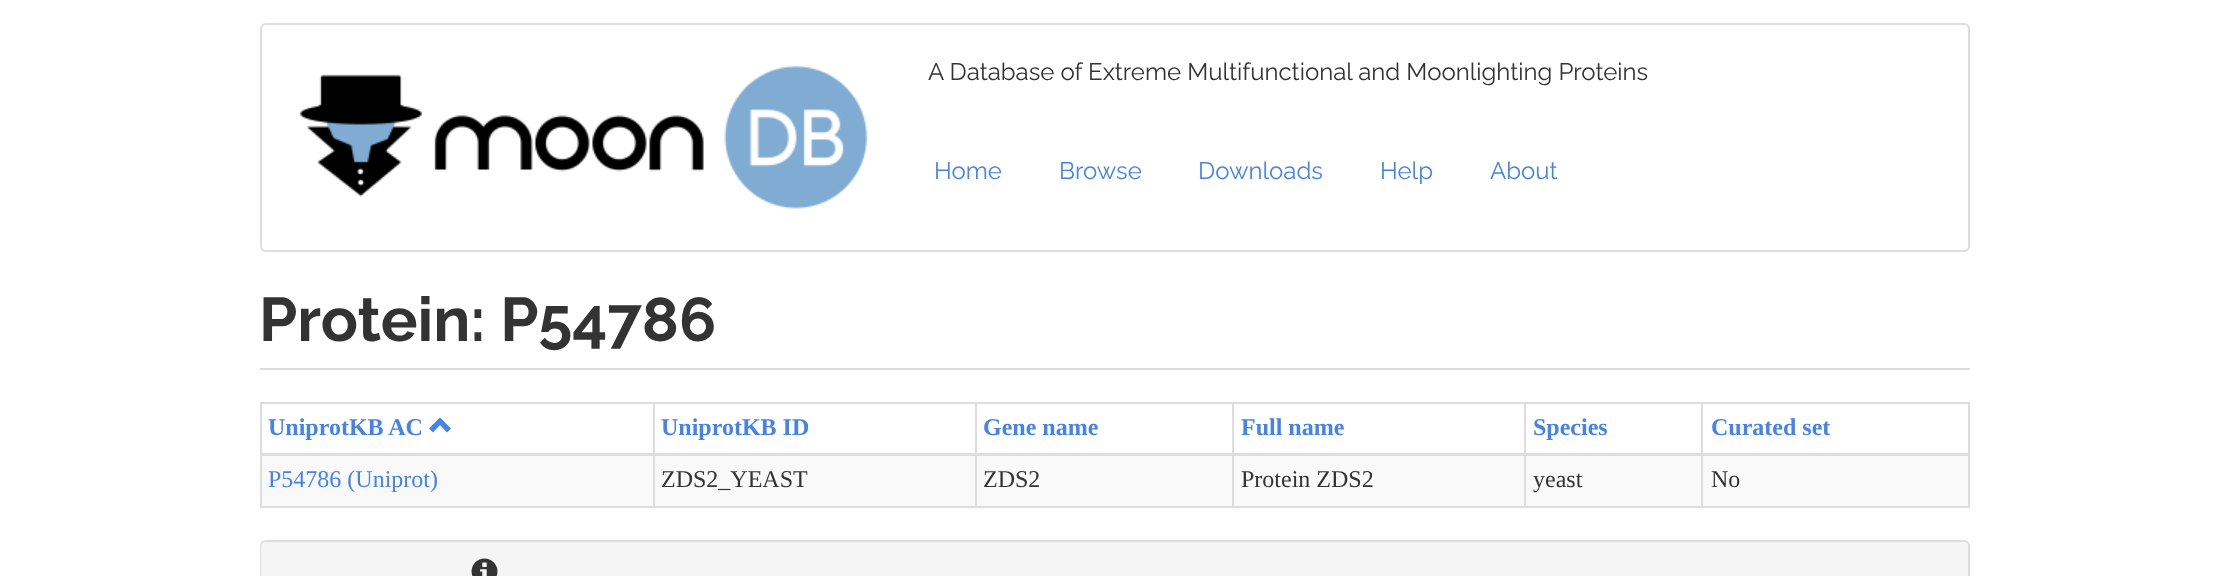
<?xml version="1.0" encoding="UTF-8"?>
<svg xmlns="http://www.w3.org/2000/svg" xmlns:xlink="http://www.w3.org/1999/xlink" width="2227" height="576">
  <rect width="100%" height="100%" fill="#ffffff" />
  <rect x="261" y="24" width="1708" height="227" rx="5" fill="none" stroke="#dddddd" stroke-width="2" />
  <image x="299" y="65" width="569" height="144" xlink:href="image1.png" />
  <rect x="260" y="368" width="1710" height="2" fill="#dddddd" />
  <rect x="260" y="402" width="1710" height="2" fill="#dddddd" />
  <rect x="1968" y="402" width="2" height="105" fill="#dddddd" />
  <rect x="260" y="506" width="1710" height="2" fill="#dddddd" />
  <rect x="260" y="402" width="2" height="105" fill="#dddddd" />
  <path d="M 451 428.5 l -4 4 l -7 -7.5 l -7 7.5 l -4 -4 l 11 -11 z" fill="#4582ec" />
  <rect x="262" y="456" width="1706" height="50" fill="#f9f9f9" />
  <rect x="653" y="402" width="2" height="105" fill="#dddddd" />
  <rect x="975" y="402" width="2" height="105" fill="#dddddd" />
  <rect x="1232" y="402" width="2" height="105" fill="#dddddd" />
  <rect x="1524" y="402" width="2" height="105" fill="#dddddd" />
  <rect x="1701" y="402" width="2" height="105" fill="#dddddd" />
  <rect x="260" y="453" width="1710" height="3" fill="#dddddd" />
  <rect x="261" y="541" width="1708" height="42" rx="5" fill="none" stroke="#dddddd" stroke-width="2" />
  <path d="M 266 542 h 1697 c 3 0 5 2 5 5 v 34 h -1707 v -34 c 0 -3 2 -5 5 -5 z" fill="#f5f5f5" />
  <image x="471" y="558" width="27" height="18" xlink:href="image2.png" />
  <text x="928" y="80" style="font-family: Raleway; font-size: 24px; fill: #333333">A Database of Extreme Multifunctional and Moonlighting Proteins</text>
  <text x="934" y="179" style="font-family: Raleway; font-size: 24px; fill: #4582ec">Home</text>
  <text x="1059" y="179" style="font-family: Raleway; font-size: 24px; fill: #4582ec">Browse</text>
  <text x="1198" y="179" style="font-family: Raleway; font-size: 24px; fill: #4582ec">Downloads</text>
  <text x="1380" y="179" style="font-family: Raleway; font-size: 24px; fill: #4582ec">Help</text>
  <text x="1490" y="179" style="font-family: Raleway; font-size: 24px; fill: #4582ec">About</text>
  <text x="259" y="341" style="font-family: Raleway; font-size: 61.5px; font-weight: bold; fill: #333333">Protein: P54786</text>
  <text x="268" y="435" style="font-family: Liberation Serif; font-size: 24px; font-weight: bold; fill: #4582ec">UniprotKB AC</text>
  <text x="661" y="435" style="font-family: Liberation Serif; font-size: 24px; font-weight: bold; fill: #4582ec">UniprotKB ID</text>
  <text x="983" y="435" style="font-family: Liberation Serif; font-size: 24px; font-weight: bold; fill: #4582ec">Gene name</text>
  <text x="1241" y="435" style="font-family: Liberation Serif; font-size: 24px; font-weight: bold; fill: #4582ec">Full name</text>
  <text x="1533" y="435" style="font-family: Liberation Serif; font-size: 24px; font-weight: bold; fill: #4582ec">Species</text>
  <text x="1711" y="435" style="font-family: Liberation Serif; font-size: 24px; font-weight: bold; fill: #4582ec">Curated set</text>
  <text x="268" y="487" style="font-family: Liberation Serif; font-size: 24px; fill: #4582ec">P54786 (Uniprot)</text>
  <text x="661" y="487" style="font-family: Liberation Serif; font-size: 24px; fill: #333333">ZDS2_YEAST</text>
  <text x="983" y="487" style="font-family: Liberation Serif; font-size: 24px; fill: #333333">ZDS2</text>
  <text x="1241" y="487" style="font-family: Liberation Serif; font-size: 24px; fill: #333333">Protein ZDS2</text>
  <text x="1533" y="487" style="font-family: Liberation Serif; font-size: 24px; fill: #333333">yeast</text>
  <text x="1711" y="487" style="font-family: Liberation Serif; font-size: 24px; fill: #333333">No</text>
</svg>
